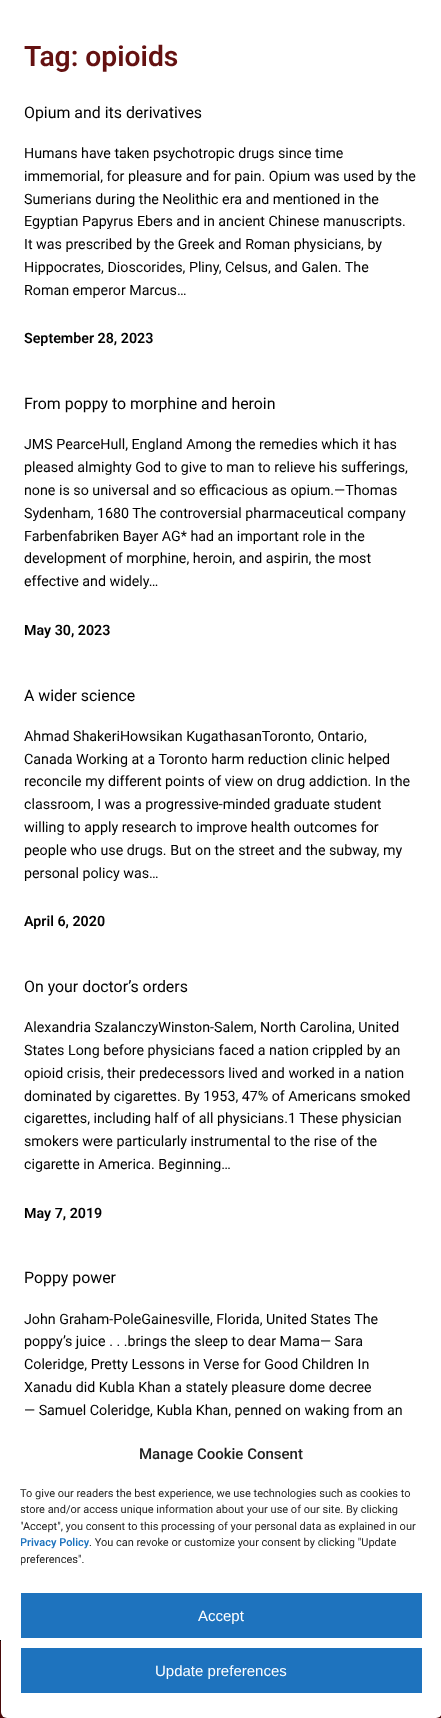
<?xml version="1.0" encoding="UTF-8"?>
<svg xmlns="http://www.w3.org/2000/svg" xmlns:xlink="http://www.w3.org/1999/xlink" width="441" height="1718">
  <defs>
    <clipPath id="clip1"><rect x="21" y="1486" width="401" height="87" /></clipPath>
  </defs>
  <rect width="100%" height="100%" fill="#ffffff" />
  <rect y="1641" width="441" height="77" fill="#480a0a" />
  <rect y="1640" width="1" height="1" fill="#000000" />
  <rect x="1" y="1427" width="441" height="291" rx="6" fill="#ffffff" />
  <rect x="21" y="1593" width="401" height="45" fill="#1e73be" />
  <rect x="21" y="1648" width="401" height="45" fill="#1e73be" />
  <text x="24" y="66" style="font-family: Roboto; font-size: 28.25px; font-weight: 600; fill: #641111">Tag: opioids</text>
  <text x="24" y="118" style="font-family: Roboto; font-size: 15.9px; fill: #000000">Opium and its derivatives</text>
  <text x="24" y="158" style="font-family: Roboto; font-size: 14.25px; fill: #000000">Humans have taken psychotropic drugs since time</text>
  <text x="24" y="181" style="font-family: Roboto; font-size: 14.25px; fill: #000000">immemorial, for pleasure and for pain. Opium was used by the</text>
  <text x="24" y="204" style="font-family: Roboto; font-size: 14.25px; fill: #000000">Sumerians during the Neolithic era and mentioned in the</text>
  <text x="24" y="226" style="font-family: Roboto; font-size: 14.25px; fill: #000000">Egyptian Papyrus Ebers and in ancient Chinese manuscripts.</text>
  <text x="24" y="249" style="font-family: Roboto; font-size: 14.25px; fill: #000000">It was prescribed by the Greek and Roman physicians, by</text>
  <text x="24" y="272" style="font-family: Roboto; font-size: 14.25px; fill: #000000">Hippocrates, Dioscorides, Pliny, Celsus, and Galen. The</text>
  <text x="24" y="295" style="font-family: Roboto; font-size: 14.25px; fill: #000000">Roman emperor Marcus…</text>
  <text x="24" y="343" style="font-family: Roboto; font-size: 14.25px; font-weight: 600; fill: #000000">September 28, 2023</text>
  <text x="24" y="409" style="font-family: Roboto; font-size: 15.9px; fill: #000000">From poppy to morphine and heroin</text>
  <text x="24" y="449" style="font-family: Roboto; font-size: 14.25px; fill: #000000">JMS PearceHull, England Among the remedies which it has</text>
  <text x="24" y="472" style="font-family: Roboto; font-size: 14.25px; fill: #000000">pleased almighty God to give to man to relieve his sufferings,</text>
  <text x="24" y="495" style="font-family: Roboto; font-size: 14.25px; fill: #000000">none is so universal and so efficacious as opium.—Thomas</text>
  <text x="24" y="518" style="font-family: Roboto; font-size: 14.25px; fill: #000000">Sydenham, 1680 The controversial pharmaceutical company</text>
  <text x="24" y="541" style="font-family: Roboto; font-size: 14.25px; fill: #000000">Farbenfabriken Bayer AG* had an important role in the</text>
  <text x="24" y="563" style="font-family: Roboto; font-size: 14.25px; fill: #000000">development of morphine, heroin, and aspirin, the most</text>
  <text x="24" y="586" style="font-family: Roboto; font-size: 14.25px; fill: #000000">effective and widely…</text>
  <text x="24" y="635" style="font-family: Roboto; font-size: 14.25px; font-weight: 600; fill: #000000">May 30, 2023</text>
  <text x="24" y="701" style="font-family: Roboto; font-size: 15.9px; fill: #000000">A wider science</text>
  <text x="24" y="741" style="font-family: Roboto; font-size: 14.25px; fill: #000000">Ahmad ShakeriHowsikan KugathasanToronto, Ontario,</text>
  <text x="24" y="764" style="font-family: Roboto; font-size: 14.25px; fill: #000000">Canada Working at a Toronto harm reduction clinic helped</text>
  <text x="24" y="786" style="font-family: Roboto; font-size: 14.25px; fill: #000000">reconcile my different points of view on drug addiction. In the</text>
  <text x="24" y="809" style="font-family: Roboto; font-size: 14.25px; fill: #000000">classroom, I was a progressive-minded graduate student</text>
  <text x="24" y="832" style="font-family: Roboto; font-size: 14.25px; fill: #000000">willing to apply research to improve health outcomes for</text>
  <text x="24" y="855" style="font-family: Roboto; font-size: 14.25px; fill: #000000">people who use drugs. But on the street and the subway, my</text>
  <text x="24" y="878" style="font-family: Roboto; font-size: 14.25px; fill: #000000">personal policy was…</text>
  <text x="24" y="926" style="font-family: Roboto; font-size: 14.25px; font-weight: 600; fill: #000000">April 6, 2020</text>
  <text x="24" y="992" style="font-family: Roboto; font-size: 15.9px; fill: #000000">On your doctor’s orders</text>
  <text x="24" y="1032" style="font-family: Roboto; font-size: 14.25px; fill: #000000">Alexandria SzalanczyWinston-Salem, North Carolina, United</text>
  <text x="24" y="1055" style="font-family: Roboto; font-size: 14.25px; fill: #000000">States Long before physicians faced a nation crippled by an</text>
  <text x="24" y="1078" style="font-family: Roboto; font-size: 14.25px; fill: #000000">opioid crisis, their predecessors lived and worked in a nation</text>
  <text x="24" y="1101" style="font-family: Roboto; font-size: 14.25px; fill: #000000">dominated by cigarettes. By 1953, 47% of Americans smoked</text>
  <text x="24" y="1123" style="font-family: Roboto; font-size: 14.25px; fill: #000000">cigarettes, including half of all physicians.1 These physician</text>
  <text x="24" y="1146" style="font-family: Roboto; font-size: 14.25px; fill: #000000">smokers were particularly instrumental to the rise of the</text>
  <text x="24" y="1169" style="font-family: Roboto; font-size: 14.25px; fill: #000000">cigarette in America. Beginning…</text>
  <text x="24" y="1218" style="font-family: Roboto; font-size: 14.25px; font-weight: 600; fill: #000000">May 7, 2019</text>
  <text x="24" y="1283" style="font-family: Roboto; font-size: 15.9px; fill: #000000">Poppy power</text>
  <text x="24" y="1324" style="font-family: Roboto; font-size: 14.25px; fill: #000000">John Graham-PoleGainesville, Florida, United States The</text>
  <text x="24" y="1346" style="font-family: Roboto; font-size: 14.25px; fill: #000000">poppy’s juice . . .brings the sleep to dear Mama— Sara</text>
  <text x="24" y="1369" style="font-family: Roboto; font-size: 14.25px; fill: #000000">Coleridge, Pretty Lessons in Verse for Good Children In</text>
  <text x="24" y="1392" style="font-family: Roboto; font-size: 14.25px; fill: #000000">Xanadu did Kubla Khan a stately pleasure dome decree</text>
  <text x="24" y="1415" style="font-family: Roboto; font-size: 14.25px; fill: #000000">— Samuel Coleridge, Kubla Khan, penned on waking from an</text>
  <text x="139" y="1459" style="font-family: Roboto; font-size: 15px; font-weight: 500; fill: #222222">Manage Cookie Consent</text>
  <text x="20" y="1497" style="font-family: Roboto; font-size: 11px; fill: #222222">To give our readers the best experience, we use technologies such as cookies to</text>
  <g clip-path="url(#clip1)">
    <text x="20" y="1513" style="font-family: Roboto; font-size: 11px; fill: #222222">store and/or access unique information about your use of our site. By clicking</text>
    <text x="20" y="1530" style="font-family: Roboto; font-size: 11px; fill: #222222">"Accept", you consent to this processing of your personal data as explained in our</text>
    <text x="20" y="1546" style="font-family: Roboto; font-size: 11px; font-weight: 600; fill: #1e73be">Privacy Policy</text>
  </g>
  <text x="89" y="1546" style="font-family: Roboto; font-size: 11px; fill: #222222">. You can revoke or customize your consent by clicking "Update</text>
  <g clip-path="url(#clip1)">
    <text x="20" y="1563" style="font-family: Roboto; font-size: 11px; fill: #222222">preferences".</text>
  </g>
  <text x="198" y="1621" style="font-family: Liberation Sans; font-size: 15px; fill: #ffffff">Accept</text>
  <text x="155" y="1676" style="font-family: Liberation Sans; font-size: 15px; fill: #ffffff">Update preferences</text>
</svg>
